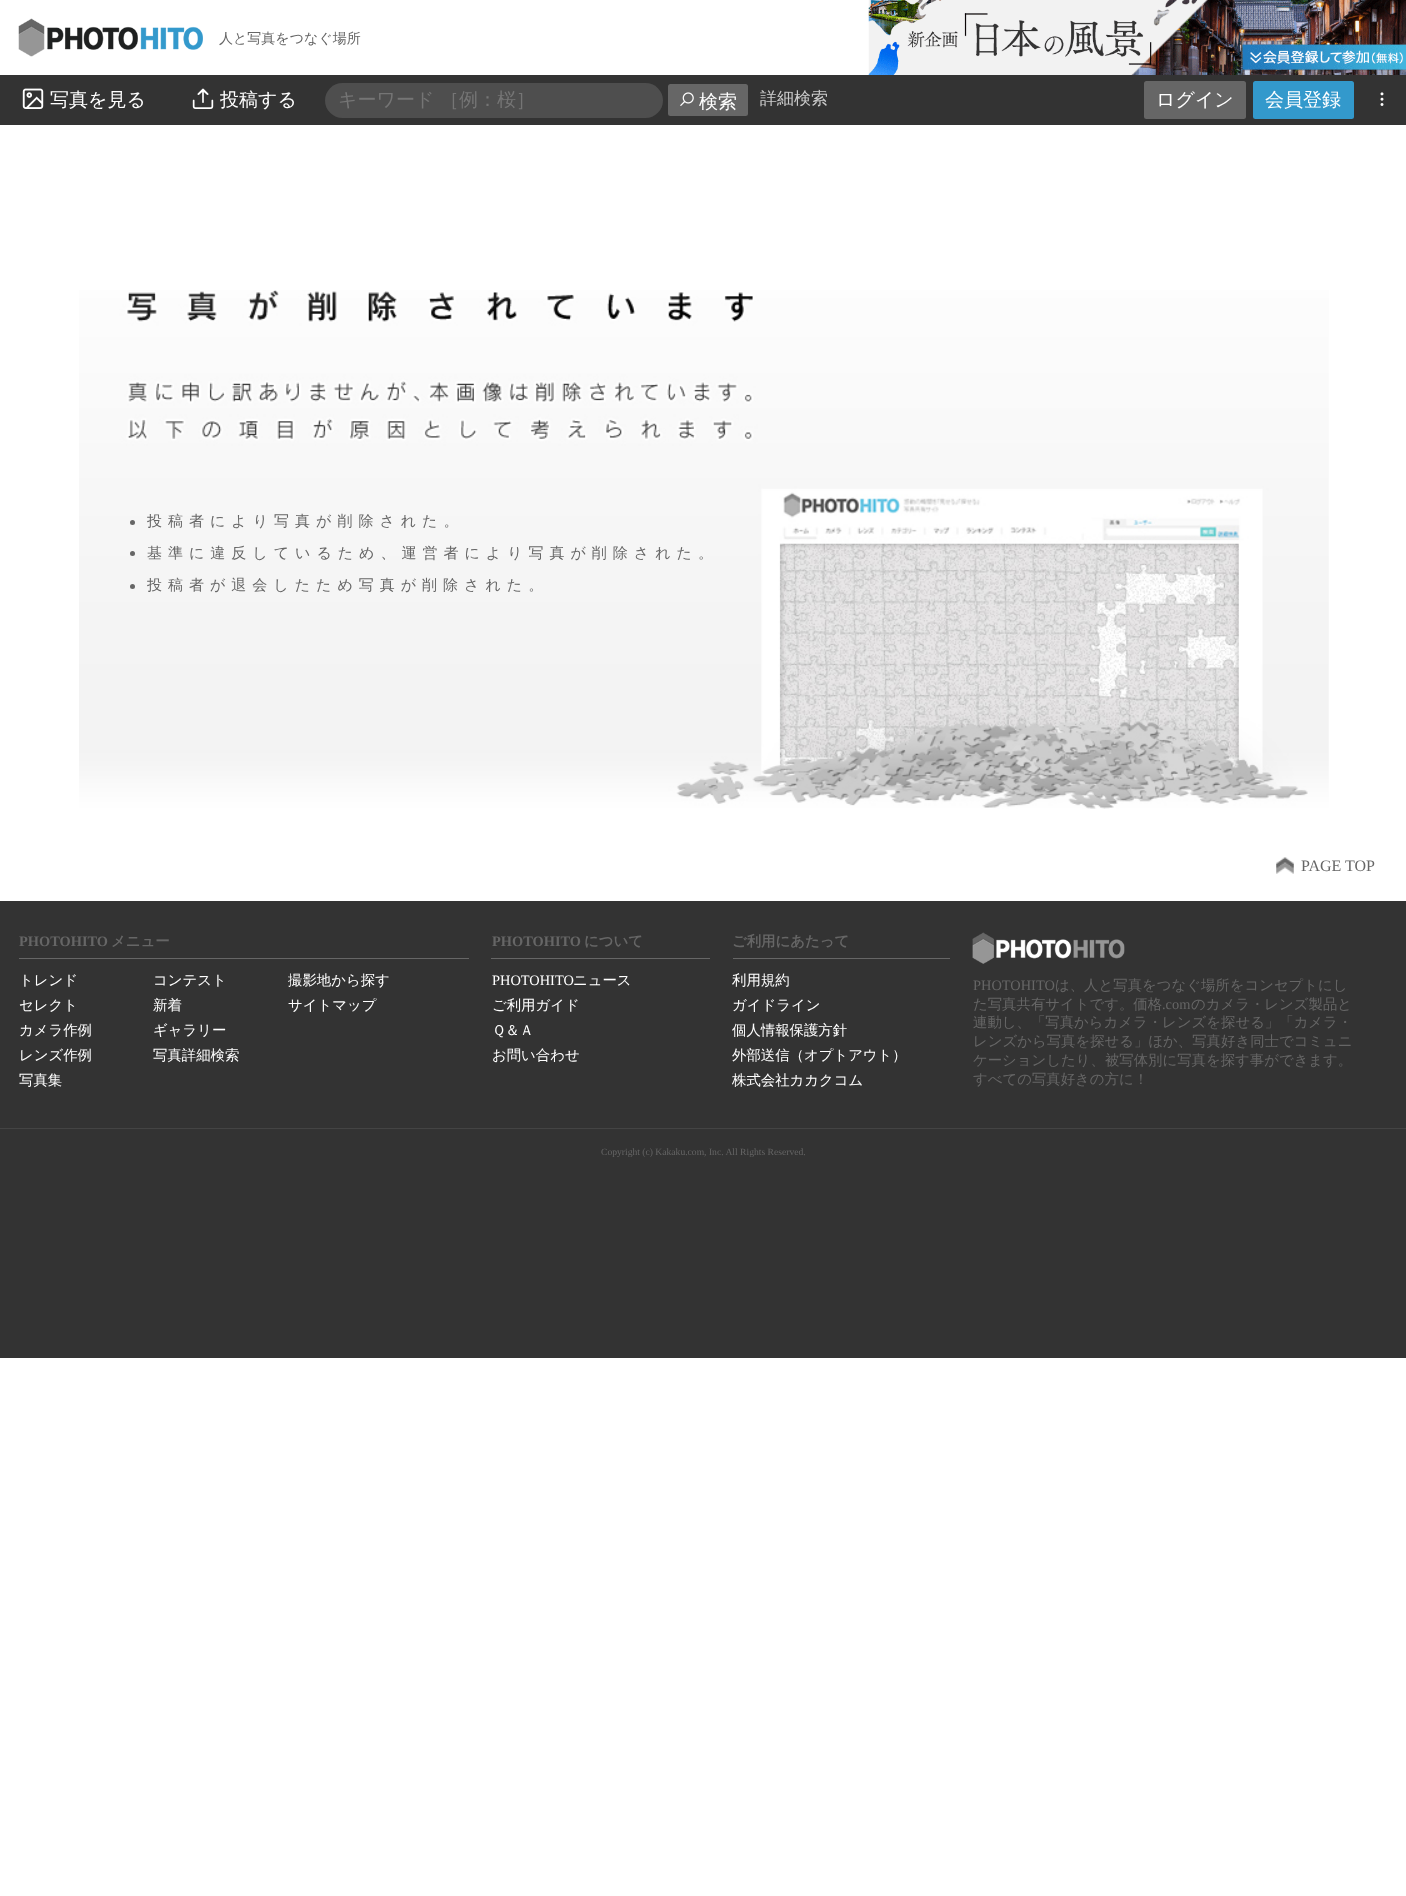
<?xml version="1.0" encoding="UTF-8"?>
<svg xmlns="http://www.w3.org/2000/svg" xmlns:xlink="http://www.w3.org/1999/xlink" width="1406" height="1896">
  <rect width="100%" height="100%" fill="#ffffff" />
  <image x="18" y="18" width="185" height="39" xlink:href="image1.png" />
  <image x="868" y="0" width="538" height="75" xlink:href="image2.png" />
  <rect y="75" width="1406" height="50" fill="#333333" />
  <image x="22" y="88" width="22" height="21" xlink:href="image3.png" />
  <image x="192" y="88" width="22" height="21" xlink:href="image4.png" />
  <rect x="325" y="83" width="338" height="35" rx="17.5" fill="#4e4e4e" />
  <rect x="668" y="84" width="80" height="32" rx="2.5" fill="#666666" />
  <image x="680" y="92" width="14" height="14" xlink:href="image5.png" />
  <rect x="1144" y="81" width="102" height="38" rx="2.5" fill="#666666" />
  <rect x="1253" y="81" width="101" height="38" rx="2.5" fill="#3399cc" />
  <image x="1380" y="92" width="4" height="14" xlink:href="image6.png" />
  <image x="79" y="290" width="1250" height="519" xlink:href="image7.png" />
  <circle cx="132.5" cy="522.5" r="2.5" fill="#666666" />
  <circle cx="132.5" cy="553.5" r="2.5" fill="#666666" />
  <circle cx="132.5" cy="586.5" r="2.5" fill="#666666" />
  <image x="1276" y="857" width="18" height="17" xlink:href="image8.png" />
  <rect y="901" width="1406" height="457" fill="#333333" />
  <rect x="19" y="958" width="450" height="1" fill="#666666" />
  <rect x="491" y="958" width="219" height="1" fill="#666666" />
  <rect x="733" y="958" width="217" height="1" fill="#666666" />
  <image x="972" y="932" width="153" height="32" xlink:href="image9.png" />
  <rect y="1128" width="1406" height="1" fill="#444444" />
  <text x="219" y="43" style="font-family: WenQuanYi Zen Hei; font-size: 14px; font-weight: 500; fill: #666666">人と写真をつなぐ場所</text>
  <text x="50" y="106" style="font-family: WenQuanYi Zen Hei; font-size: 19px; font-weight: 500; fill: #ffffff">写真を見る</text>
  <text x="220" y="106" style="font-family: WenQuanYi Zen Hei; font-size: 19px; font-weight: 500; fill: #ffffff">投稿する</text>
  <text x="338" y="106" style="font-family: WenQuanYi Zen Hei; font-size: 19px; font-weight: 500; fill: #757575">キーワード ［例：桜］</text>
  <text x="699" y="108" style="font-family: WenQuanYi Zen Hei; font-size: 19px; font-weight: 500; fill: #ffffff">検索</text>
  <text x="760" y="104" style="font-family: WenQuanYi Zen Hei; font-size: 17px; font-weight: 500; fill: #cccccc">詳細検索</text>
  <text x="1156" y="106" style="font-family: WenQuanYi Zen Hei; font-size: 19px; font-weight: 500; fill: #ffffff">ログイン</text>
  <text x="1265" y="106" style="font-family: WenQuanYi Zen Hei; font-size: 19px; font-weight: 500; fill: #ffffff">会員登録</text>
  <text x="147" y="526" style="font-family: WenQuanYi Zen Hei; font-size: 15px; font-weight: 500; letter-spacing: 6px; fill: #666666">投稿者により写真が削除された。</text>
  <text x="147" y="558" style="font-family: WenQuanYi Zen Hei; font-size: 15px; font-weight: 500; letter-spacing: 6px; fill: #666666">基準に違反しているため、運営者により写真が削除された。</text>
  <text x="147" y="590" style="font-family: WenQuanYi Zen Hei; font-size: 15px; font-weight: 500; letter-spacing: 6px; fill: #666666">投稿者が退会したため写真が削除された。</text>
  <text x="1301" y="871" style="font-family: Liberation Serif; font-size: 16px; fill: #666666">PAGE TOP</text>
  <text x="19" y="946" style="font-family: Liberation Serif; font-size: 14.4px; font-weight: bold; fill: #666666">PHOTOHITO</text>
  <text x="111" y="946" style="font-family: WenQuanYi Zen Hei; font-size: 14.4px; font-weight: bold; fill: #666666">メニュー</text>
  <text x="19" y="985" style="font-family: WenQuanYi Zen Hei; font-size: 14.4px; font-weight: 500; fill: #ffffff">トレンド</text>
  <text x="19" y="1010" style="font-family: WenQuanYi Zen Hei; font-size: 14.4px; font-weight: 500; fill: #ffffff">セレクト</text>
  <text x="19" y="1035" style="font-family: WenQuanYi Zen Hei; font-size: 14.4px; font-weight: 500; fill: #ffffff">カメラ作例</text>
  <text x="19" y="1060" style="font-family: WenQuanYi Zen Hei; font-size: 14.4px; font-weight: 500; fill: #ffffff">レンズ作例</text>
  <text x="19" y="1085" style="font-family: WenQuanYi Zen Hei; font-size: 14.4px; font-weight: 500; fill: #ffffff">写真集</text>
  <text x="153" y="985" style="font-family: WenQuanYi Zen Hei; font-size: 14.4px; font-weight: 500; fill: #ffffff">コンテスト</text>
  <text x="153" y="1010" style="font-family: WenQuanYi Zen Hei; font-size: 14.4px; font-weight: 500; fill: #ffffff">新着</text>
  <text x="153" y="1035" style="font-family: WenQuanYi Zen Hei; font-size: 14.4px; font-weight: 500; fill: #ffffff">ギャラリー</text>
  <text x="153" y="1060" style="font-family: WenQuanYi Zen Hei; font-size: 14.4px; font-weight: 500; fill: #ffffff">写真詳細検索</text>
  <text x="288" y="985" style="font-family: WenQuanYi Zen Hei; font-size: 14.4px; font-weight: 500; fill: #ffffff">撮影地から探す</text>
  <text x="288" y="1010" style="font-family: WenQuanYi Zen Hei; font-size: 14.4px; font-weight: 500; fill: #ffffff">サイトマップ</text>
  <text x="492" y="946" style="font-family: Liberation Serif; font-size: 14.4px; font-weight: bold; fill: #666666">PHOTOHITO</text>
  <text x="584" y="946" style="font-family: WenQuanYi Zen Hei; font-size: 14.4px; font-weight: bold; fill: #666666">について</text>
  <text x="492" y="985" style="font-family: Liberation Serif; font-size: 14.4px; fill: #ffffff">PHOTOHITO</text>
  <text x="573" y="985" style="font-family: WenQuanYi Zen Hei; font-size: 14.4px; font-weight: 500; fill: #ffffff">ニュース</text>
  <text x="492" y="1010" style="font-family: WenQuanYi Zen Hei; font-size: 14.4px; font-weight: 500; fill: #ffffff">ご利用ガイド</text>
  <text x="492" y="1035" style="font-family: WenQuanYi Zen Hei; font-size: 14.4px; font-weight: 500; fill: #ffffff">Ｑ＆Ａ</text>
  <text x="492" y="1060" style="font-family: WenQuanYi Zen Hei; font-size: 14.4px; font-weight: 500; fill: #ffffff">お問い合わせ</text>
  <text x="732" y="946" style="font-family: WenQuanYi Zen Hei; font-size: 14.4px; font-weight: bold; fill: #666666">ご利用にあたって</text>
  <text x="732" y="985" style="font-family: WenQuanYi Zen Hei; font-size: 14.4px; font-weight: 500; fill: #ffffff">利用規約</text>
  <text x="732" y="1010" style="font-family: WenQuanYi Zen Hei; font-size: 14.4px; font-weight: 500; fill: #ffffff">ガイドライン</text>
  <text x="732" y="1035" style="font-family: WenQuanYi Zen Hei; font-size: 14.4px; font-weight: 500; fill: #ffffff">個人情報保護方針</text>
  <text x="732" y="1060" style="font-family: WenQuanYi Zen Hei; font-size: 14.4px; font-weight: 500; fill: #ffffff">外部送信（オプトアウト）</text>
  <text x="732" y="1085" style="font-family: WenQuanYi Zen Hei; font-size: 14.4px; font-weight: 500; fill: #ffffff">株式会社カカクコム</text>
  <text x="973" y="990" style="font-family: Liberation Serif; font-size: 14.4px; fill: #666666">PHOTOHITO</text>
  <text x="1055" y="990" style="font-family: WenQuanYi Zen Hei; font-size: 14.4px; font-weight: 500; fill: #666666">は、人と写真をつなぐ場所をコンセプトにし</text>
  <text x="973" y="1009" style="font-family: WenQuanYi Zen Hei; font-size: 14.4px; font-weight: 500; fill: #666666">た写真共有サイトです。価格</text>
  <text x="1162" y="1009" style="font-family: Liberation Serif; font-size: 14.4px; fill: #666666">.com</text>
  <text x="1191" y="1009" style="font-family: WenQuanYi Zen Hei; font-size: 14.4px; font-weight: 500; fill: #666666">のカメラ・レンズ製品と</text>
  <text x="973" y="1027" style="font-family: WenQuanYi Zen Hei; font-size: 14.4px; font-weight: 500; fill: #666666">連動し、「写真からカメラ・レンズを探せる」「カメラ・</text>
  <text x="973" y="1046" style="font-family: WenQuanYi Zen Hei; font-size: 14.4px; font-weight: 500; fill: #666666">レンズから写真を探せる」ほか、写真好き同士でコミュニ</text>
  <text x="973" y="1065" style="font-family: WenQuanYi Zen Hei; font-size: 14.4px; font-weight: 500; fill: #666666">ケーションしたり、被写体別に写真を探す事ができます。</text>
  <text x="973" y="1084" style="font-family: WenQuanYi Zen Hei; font-size: 14.4px; font-weight: 500; fill: #666666">すべての写真好きの方に！</text>
  <text x="601" y="1155" style="font-family: Liberation Serif; font-size: 9.6px; fill: #666666">Copyright (c) Kakaku.com, Inc. All Rights Reserved.</text>
</svg>
